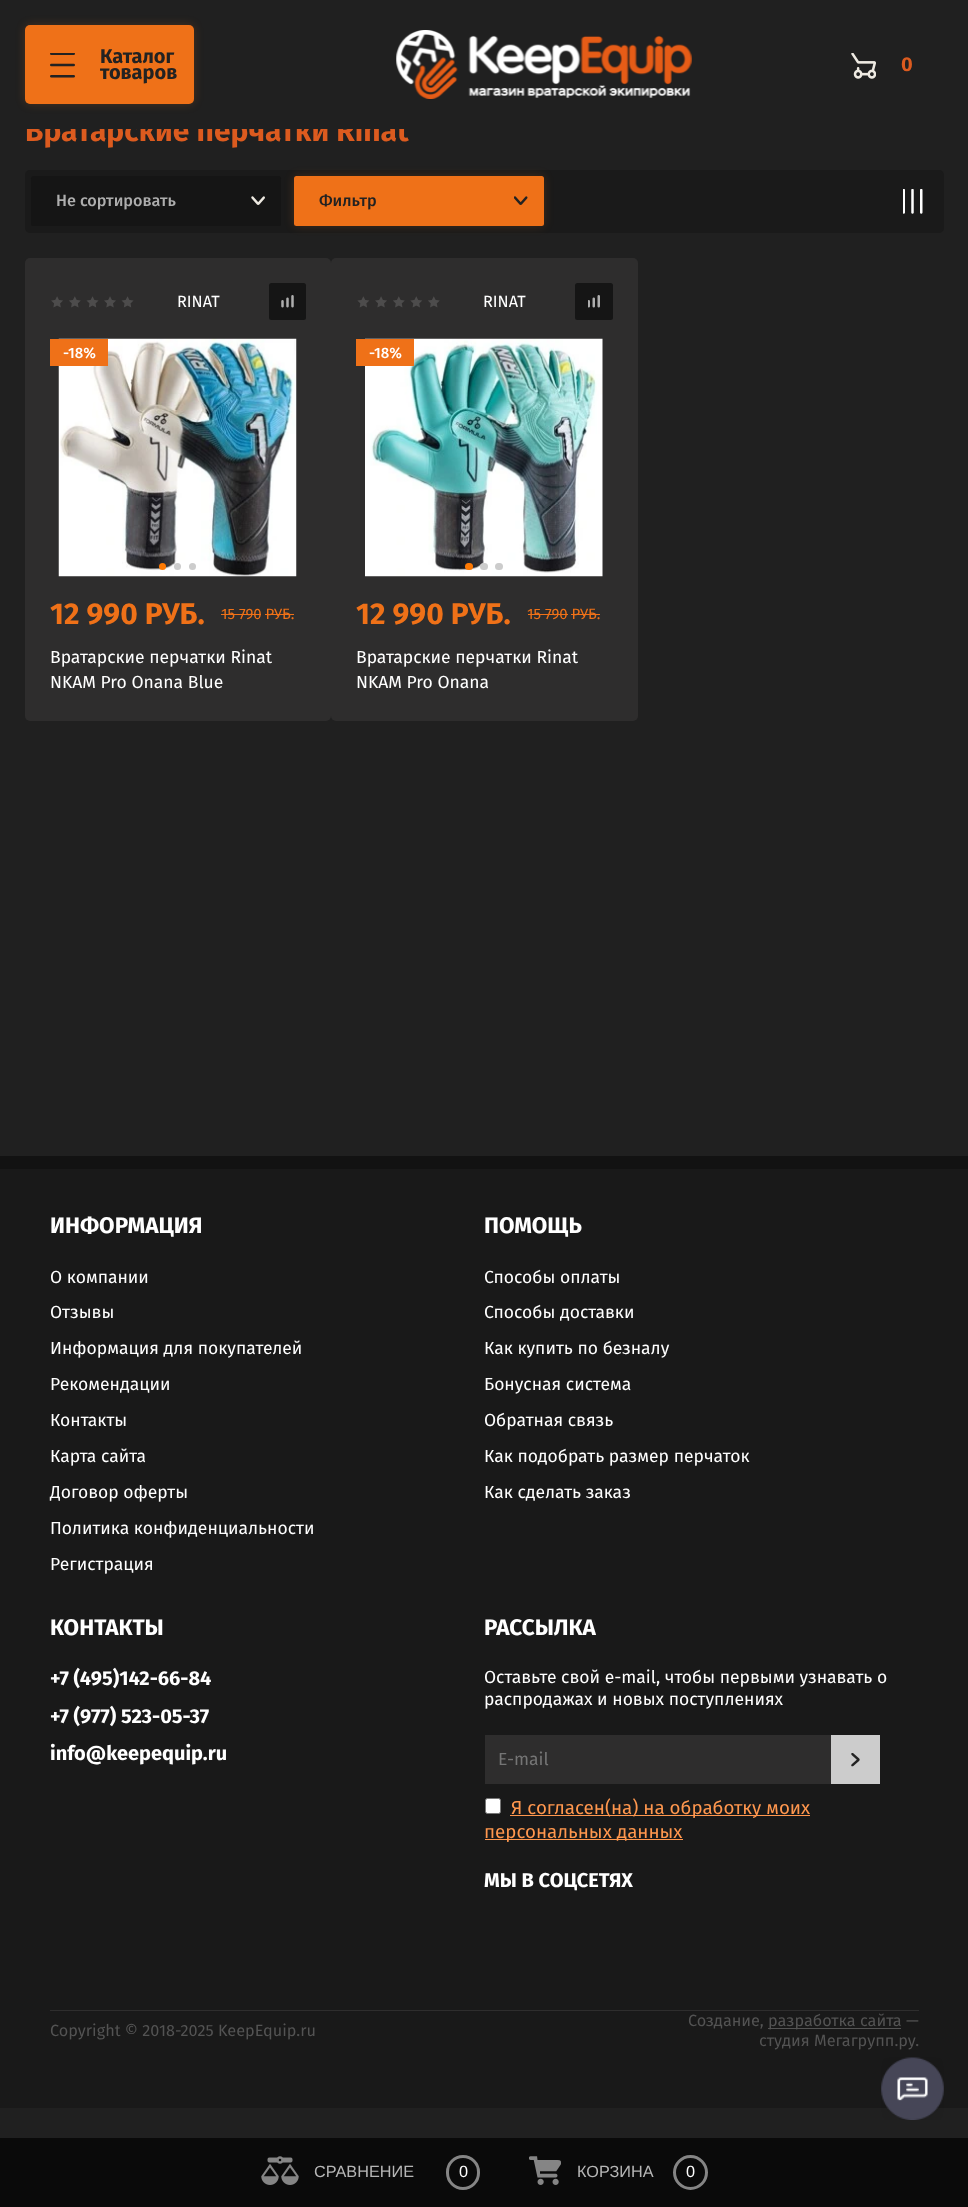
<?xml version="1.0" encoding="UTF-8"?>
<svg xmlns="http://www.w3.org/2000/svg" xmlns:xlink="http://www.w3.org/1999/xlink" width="968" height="2207">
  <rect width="100%" height="100%" fill="#202020" />
  <image x="396" y="30" width="296" height="69" xlink:href="image2.png" />
  <image x="851" y="53" width="25" height="26" xlink:href="image3.png" />
  <rect x="25" y="170" width="919" height="63" rx="5" fill="#1a1a1a" />
  <rect x="294" y="176" width="250" height="50" rx="2.5" fill="#ef7118" fill-opacity="0.2" filter="blur(5px)" />
  <rect x="31" y="176" width="250" height="50" rx="2.5" fill="#151515" />
  <image x="251" y="196" width="14" height="9" xlink:href="image4.png" />
  <rect x="294" y="176" width="250" height="50" rx="2.5" fill="#ef7118" />
  <image x="514" y="196" width="14" height="9" xlink:href="image5.png" />
  <image x="903" y="189" width="20" height="25" xlink:href="image6.png" />
  <rect x="25" y="258" width="306" height="463" rx="5" fill="#2e2d2d" />
  <image x="51" y="296" width="83" height="12" xlink:href="image7.png" />
  <rect x="269" y="283" width="37" height="37" rx="2.5" fill="#151515" />
  <image x="281" y="295" width="13" height="13" xlink:href="image8.png" />
  <image x="58" y="338" width="239" height="239" xlink:href="image9.png" />
  <circle cx="162.5" cy="566.5" r="3.5" fill="#fe7903" />
  <circle cx="177.5" cy="566.5" r="3.5" fill="#cccccc" />
  <circle cx="192.5" cy="566.5" r="3.5" fill="#cccccc" />
  <rect x="50" y="339" width="58" height="27" fill="#ef7118" />
  <rect x="221" y="614" width="40" height="1" fill="#ef7118" />
  <rect x="265" y="614" width="29" height="1" fill="#ef7118" />
  <rect x="331" y="258" width="307" height="463" rx="5" fill="#2e2d2d" />
  <image x="357" y="296" width="83" height="12" xlink:href="image10.png" />
  <rect x="575" y="283" width="38" height="37" rx="2.5" fill="#151515" />
  <image x="588" y="295" width="12" height="13" xlink:href="image11.png" />
  <image x="365" y="338" width="238" height="239" xlink:href="image12.png" />
  <rect x="465" y="563" width="8" height="7" rx="3.5" fill="#fe7903" />
  <rect x="480" y="563" width="8" height="7" rx="3.5" fill="#cccccc" />
  <rect x="495" y="563" width="8" height="7" rx="3.5" fill="#cccccc" />
  <rect x="356" y="339" width="58" height="27" fill="#ef7118" />
  <rect x="528" y="614" width="40" height="1" fill="#ef7118" />
  <rect x="571" y="614" width="29" height="1" fill="#ef7118" />
  <rect y="2138" width="968" height="69" fill="#0a0a0a" />
  <image x="261" y="2156" width="38" height="29" xlink:href="image13.png" />
  <rect x="447.5" y="2156.5" width="31" height="32" rx="15.5" fill="none" stroke="#858585" stroke-width="3" />
  <image x="529" y="2156" width="32" height="29" xlink:href="image14.png" />
  <circle cx="690.5" cy="2172.5" r="16" fill="none" stroke="#858585" stroke-width="3" />
  <rect y="1169" width="968" height="939" fill="#191919" />
  <rect y="1156" width="968" height="13" fill="#121212" />
  <rect x="50" y="2010" width="869" height="1" fill="#2e2d2d" />
  <rect x="485" y="1735" width="346" height="49" fill="#2e2d2d" />
  <rect x="831" y="1735" width="49" height="49" fill="#cccccc" />
  <image x="851" y="1753" width="9" height="14" xlink:href="image15.png" />
  <rect x="485.5" y="1798.5" width="15" height="15" rx="2" fill="#ffffff" stroke="#767676" />
  <rect x="510" y="1815" width="300" height="1" fill="#ff974e" />
  <rect x="485" y="1839" width="198" height="1" fill="#ff974e" />
  <rect x="768" y="2028" width="133" height="1" fill="#535353" />
  <image x="881" y="2057" width="63" height="63" xlink:href="image16.png" />
  <text x="901" y="71" style="font-family: Fira Sans; font-size: 20px; font-weight: bold; fill: #dc5b1f">0</text>
  <text x="25" y="141" style="font-family: Fira Sans; font-size: 30px; font-weight: bold; fill: #dc5b1f">Вратарские перчатки Rinat</text>
  <rect x="26" y="116" width="382" height="13" fill="#202020" />
  <rect x="25" y="25" width="169" height="79" rx="5" fill="#ef7118" fill-opacity="0.2" filter="blur(5px)" />
  <rect x="25" y="25" width="169" height="79" rx="5" fill="#ef7118" />
  <image x="50" y="53" width="25" height="25" xlink:href="image1.png" />
  <text x="100" y="79" style="font-family: Fira Sans; font-size: 20px; font-weight: bold; fill: #222222">товаров</text>
  <text x="100" y="63" style="font-family: Fira Sans; font-size: 20px; font-weight: bold; fill: #222222">Каталог</text>
  <text x="56" y="206" style="font-family: Fira Sans; font-size: 16.25px; font-weight: 500; fill: #aeaeae">Не сортировать</text>
  <text x="319" y="206" style="font-family: Fira Sans; font-size: 16.25px; font-weight: 500; fill: #222222">Фильтр</text>
  <text x="177" y="307" style="font-family: Fira Sans; font-size: 16.25px; fill: #ffffff">RINAT</text>
  <text x="63" y="358" style="font-family: Fira Sans; font-size: 15px; font-weight: 500; fill: #ffffff">-18%</text>
  <text x="50" y="624" style="font-family: Fira Sans; font-size: 30px; font-weight: bold; fill: #ef7118">12 990 РУБ.</text>
  <text x="221" y="619" style="font-family: Fira Sans; font-size: 15px; fill: #ef7118">15 790 РУБ.</text>
  <text x="50" y="663" style="font-family: Fira Sans; font-size: 17.5px; fill: #ffffff">Вратарские перчатки Rinat</text>
  <text x="50" y="688" style="font-family: Fira Sans; font-size: 17.5px; fill: #ffffff">NKAM Pro Onana Blue</text>
  <text x="483" y="307" style="font-family: Fira Sans; font-size: 16.25px; fill: #ffffff">RINAT</text>
  <text x="369" y="358" style="font-family: Fira Sans; font-size: 15px; font-weight: 500; fill: #ffffff">-18%</text>
  <text x="356" y="624" style="font-family: Fira Sans; font-size: 30px; font-weight: bold; fill: #ef7118">12 990 РУБ.</text>
  <text x="527" y="619" style="font-family: Fira Sans; font-size: 15px; fill: #ef7118">15 790 РУБ.</text>
  <text x="356" y="663" style="font-family: Fira Sans; font-size: 17.5px; fill: #ffffff">Вратарские перчатки Rinat</text>
  <text x="356" y="688" style="font-family: Fira Sans; font-size: 17.5px; fill: #ffffff">NKAM Pro Onana</text>
  <text x="314" y="2177" style="font-family: Liberation Sans; font-size: 16.25px; fill: #b6b6b6">СРАВНЕНИЕ</text>
  <text x="459" y="2177" style="font-family: Liberation Sans; font-size: 16.25px; fill: #ffffff">0</text>
  <text x="577" y="2177" style="font-family: Liberation Sans; font-size: 16.25px; fill: #b6b6b6">КОРЗИНА</text>
  <text x="686" y="2177" style="font-family: Liberation Sans; font-size: 16.25px; fill: #ffffff">0</text>
  <text x="50" y="1233" style="font-family: Fira Sans; font-size: 22.5px; font-weight: bold; fill: #ffffff">ИНФОРМАЦИЯ</text>
  <text x="50" y="1283" style="font-family: Fira Sans; font-size: 17.5px; fill: #ffffff">О компании</text>
  <text x="50" y="1318" style="font-family: Fira Sans; font-size: 17.5px; fill: #ffffff">Отзывы</text>
  <text x="50" y="1354" style="font-family: Fira Sans; font-size: 17.5px; fill: #ffffff">Информация для покупателей</text>
  <text x="50" y="1390" style="font-family: Fira Sans; font-size: 17.5px; fill: #ffffff">Рекомендации</text>
  <text x="50" y="1426" style="font-family: Fira Sans; font-size: 17.5px; fill: #ffffff">Контакты</text>
  <text x="50" y="1462" style="font-family: Fira Sans; font-size: 17.5px; fill: #ffffff">Карта сайта</text>
  <text x="50" y="1498" style="font-family: Fira Sans; font-size: 17.5px; fill: #ffffff">Договор оферты</text>
  <text x="50" y="1534" style="font-family: Fira Sans; font-size: 17.5px; fill: #ffffff">Политика конфиденциальности</text>
  <text x="50" y="1570" style="font-family: Fira Sans; font-size: 17.5px; fill: #ffffff">Регистрация</text>
  <text x="484" y="1233" style="font-family: Fira Sans; font-size: 22.5px; font-weight: bold; fill: #ffffff">ПОМОЩЬ</text>
  <text x="484" y="1283" style="font-family: Fira Sans; font-size: 17.5px; fill: #ffffff">Способы оплаты</text>
  <text x="484" y="1318" style="font-family: Fira Sans; font-size: 17.5px; fill: #ffffff">Способы доставки</text>
  <text x="484" y="1354" style="font-family: Fira Sans; font-size: 17.5px; fill: #ffffff">Как купить по безналу</text>
  <text x="484" y="1390" style="font-family: Fira Sans; font-size: 17.5px; fill: #ffffff">Бонусная система</text>
  <text x="484" y="1426" style="font-family: Fira Sans; font-size: 17.5px; fill: #ffffff">Обратная связь</text>
  <text x="484" y="1462" style="font-family: Fira Sans; font-size: 17.5px; fill: #ffffff">Как подобрать размер перчаток</text>
  <text x="484" y="1498" style="font-family: Fira Sans; font-size: 17.5px; fill: #ffffff">Как сделать заказ</text>
  <text x="50" y="1635" style="font-family: Fira Sans; font-size: 22.5px; font-weight: bold; fill: #ffffff">КОНТАКТЫ</text>
  <text x="50" y="1685" style="font-family: Fira Sans; font-size: 20px; font-weight: bold; fill: #ffffff">+7 (495)142-66-84</text>
  <text x="50" y="1723" style="font-family: Fira Sans; font-size: 20px; font-weight: bold; fill: #ffffff">+7 (977) 523-05-37</text>
  <text x="50" y="1760" style="font-family: Fira Sans; font-size: 20px; font-weight: bold; fill: #ffffff">info@keepequip.ru</text>
  <text x="484" y="1635" style="font-family: Fira Sans; font-size: 22.5px; font-weight: bold; fill: #ffffff">РАССЫЛКА</text>
  <text x="484" y="1683" style="font-family: Fira Sans; font-size: 17.5px; fill: #ffffff">Оставьте свой e-mail, чтобы первыми узнавать о</text>
  <text x="484" y="1705" style="font-family: Fira Sans; font-size: 17.5px; fill: #ffffff">распродажах и новых поступлениях</text>
  <text x="498" y="1765" style="font-family: Fira Sans; font-size: 17.5px; fill: #757575">E-mail</text>
  <text x="511" y="1814" style="font-family: Fira Sans; font-size: 18.75px; fill: #ff974e">Я согласен(на) на обработку моих</text>
  <text x="484" y="1838" style="font-family: Fira Sans; font-size: 18.75px; fill: #ff974e">персональных данных</text>
  <text x="484" y="1887" style="font-family: Fira Sans; font-size: 20px; font-weight: bold; fill: #ffffff">МЫ В СОЦСЕТЯХ</text>
  <text x="50" y="2036" style="font-family: Fira Sans; font-size: 16.25px; fill: #535353">Copyright © 2018-2025 KeepEquip.ru</text>
  <text x="688" y="2026" style="font-family: Fira Sans; font-size: 16.25px; fill: #535353">Создание,</text>
  <text x="768" y="2026" style="font-family: Fira Sans; font-size: 16.25px; fill: #535353">разработка сайта —</text>
  <text x="759" y="2046" style="font-family: Fira Sans; font-size: 16.25px; fill: #535353">студия Мегагрупп.ру.</text>
</svg>
